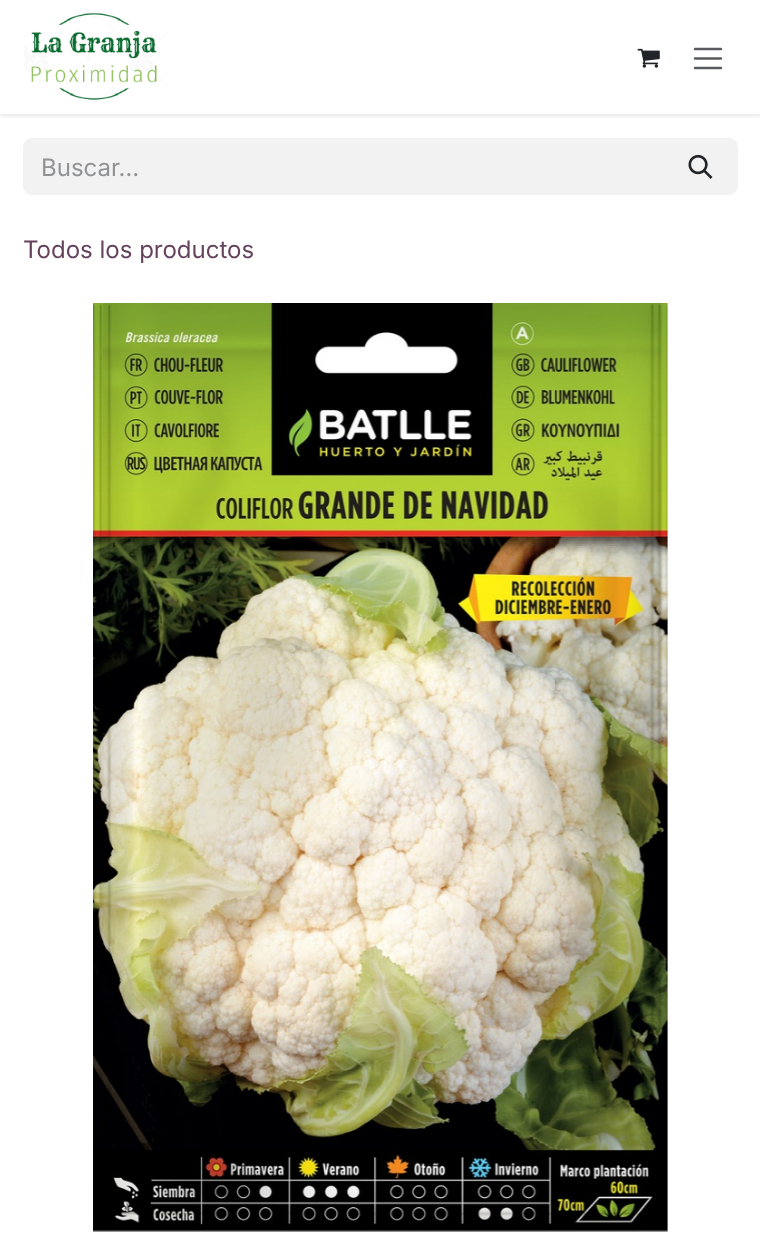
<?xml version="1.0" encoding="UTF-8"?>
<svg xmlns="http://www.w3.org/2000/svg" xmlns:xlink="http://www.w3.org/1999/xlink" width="760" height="1237">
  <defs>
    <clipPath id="clip1"><rect x="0" y="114" width="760" height="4" /></clipPath>
  </defs>
  <rect width="100%" height="100%" fill="#ffffff" />
  <g clip-path="url(#clip1)">
    <rect y="2" width="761" height="114" fill="#000000" fill-opacity="0.1" filter="blur(2px)" />
  </g>
  <image x="24" y="12" width="144" height="88" xlink:href="image1.png" />
  <image x="637" y="48" width="23" height="20" xlink:href="image2.png" />
  <path d="M 695 49 h 26 m -26 9.5 h 26 m -26 9.5 h 26" fill="none" stroke="#595c5f" stroke-width="2.4" stroke-linecap="round" />
  <path d="M 32 138 h 633 v 57 h -633 c -5 0 -9 -4 -9 -9 v -39 c 0 -5 4 -9 9 -9 z" fill="#f3f2f2" />
  <path d="M 664 139 h 65 c 4.5 0 8 3.5 8 8 v 39 c 0 4.5 -3.5 8 -8 8 h -65 z" fill="#f3f2f2" stroke="#f3f2f2" stroke-width="2" />
  <image x="688" y="154" width="25" height="25" xlink:href="image3.png" />
  <image x="93" y="303" width="575" height="929" xlink:href="image4.png" />
  <text x="41" y="176" style="font-family: Inter; font-size: 24px; fill: #909294">Buscar…</text>
  <text x="23" y="258" style="font-family: Inter; font-size: 24px; fill: #65435c">Todos los productos</text>
</svg>
